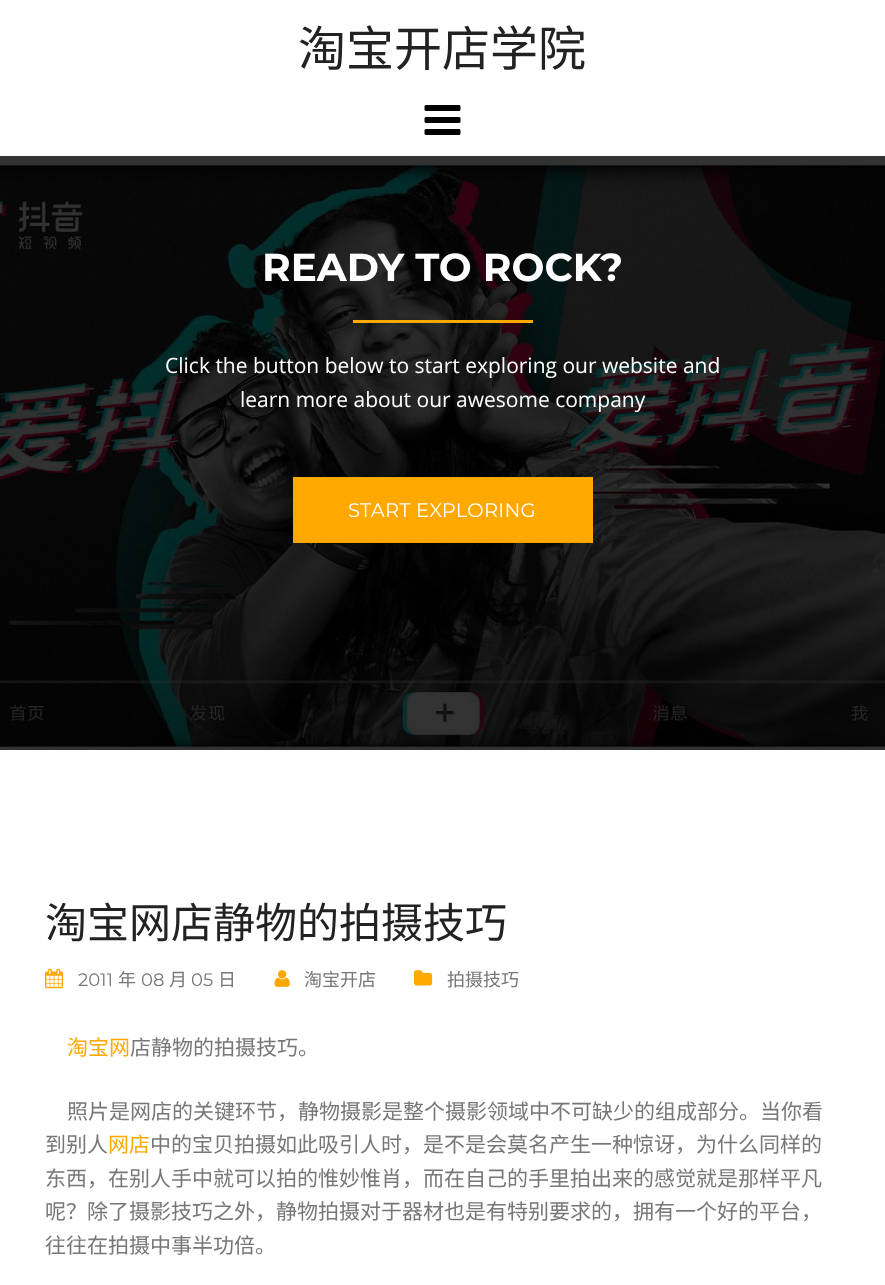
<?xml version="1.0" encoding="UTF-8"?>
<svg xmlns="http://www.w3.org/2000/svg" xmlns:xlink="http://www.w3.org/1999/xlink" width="885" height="1285">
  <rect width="100%" height="100%" fill="#ffffff" />
  <image x="424" y="105" width="37" height="30" xlink:href="image1.png" />
  <image x="0" y="156" width="885" height="594" xlink:href="image2.png" />
  <rect x="353" y="320" width="180" height="3" fill="#ffa800" />
  <rect x="293" y="477" width="300" height="66" fill="#ffa800" />
  <image x="45" y="968" width="19" height="21" xlink:href="image3.png" />
  <image x="274" y="970" width="16" height="17" xlink:href="image4.png" />
  <image x="414" y="970" width="19" height="16" xlink:href="image5.png" />
  <text x="298" y="66" style="font-family: Noto Sans CJK SC; font-size: 48px; fill: #222222">淘宝开店学院</text>
  <text x="262" y="281" style="font-family: Montserrat; font-size: 39px; font-weight: bold; fill: #ffffff">READY TO ROCK?</text>
  <text x="165" y="373" style="font-family: Open Sans; font-size: 21px; fill: #ffffff">Click the button below to start exploring our website and</text>
  <text x="240" y="407" style="font-family: Open Sans; font-size: 21px; fill: #ffffff">learn more about our awesome company</text>
  <text x="348" y="517" style="font-family: Montserrat; font-size: 19.5px; letter-spacing: 0.25px; fill: #ffffff">START EXPLORING</text>
  <text x="45" y="938" style="font-family: Noto Sans CJK SC; font-size: 42px; fill: #222222">淘宝网店静物的拍摄技巧</text>
  <text x="78" y="986" style="font-family: Montserrat; font-size: 18px; fill: #777777">2011</text>
  <text x="118" y="986" style="font-family: Noto Sans CJK SC; font-size: 18px; fill: #777777">年</text>
  <text x="141" y="986" style="font-family: Montserrat; font-size: 18px; fill: #777777">08</text>
  <text x="169" y="986" style="font-family: Noto Sans CJK SC; font-size: 18px; fill: #777777">月</text>
  <text x="191" y="986" style="font-family: Montserrat; font-size: 18px; fill: #777777">05</text>
  <text x="218" y="986" style="font-family: Noto Sans CJK SC; font-size: 18px; fill: #777777">日</text>
  <text x="304" y="986" style="font-family: Noto Sans CJK SC; font-size: 18px; fill: #777777">淘宝开店</text>
  <text x="447" y="986" style="font-family: Noto Sans CJK SC; font-size: 18px; fill: #777777">拍摄技巧</text>
  <text x="67" y="1055" style="font-family: Noto Sans CJK SC; font-size: 21px; fill: #ffa800">淘宝网</text>
  <text x="130" y="1055" style="font-family: Noto Sans CJK SC; font-size: 21px; fill: #777777">店静物的拍摄技巧。</text>
  <text x="67" y="1119" style="font-family: Noto Sans CJK SC; font-size: 21px; fill: #777777">照片是网店的关键环节，静物摄影是整个摄影领域中不可缺少的组成部分。当你看</text>
  <text x="45" y="1152" style="font-family: Noto Sans CJK SC; font-size: 21px; fill: #777777">到别人</text>
  <text x="108" y="1152" style="font-family: Noto Sans CJK SC; font-size: 21px; fill: #ffa800">网店</text>
  <text x="150" y="1152" style="font-family: Noto Sans CJK SC; font-size: 21px; fill: #777777">中的宝贝拍摄如此吸引人时，是不是会莫名产生一种惊讶，为什么同样的</text>
  <text x="45" y="1186" style="font-family: Noto Sans CJK SC; font-size: 21px; fill: #777777">东西，在别人手中就可以拍的惟妙惟肖，而在自己的手里拍出来的感觉就是那样平凡</text>
  <text x="45" y="1219" style="font-family: Noto Sans CJK SC; font-size: 21px; fill: #777777">呢？除了摄影技巧之外，静物拍摄对于器材也是有特别要求的，拥有一个好的平台，</text>
  <text x="45" y="1253" style="font-family: Noto Sans CJK SC; font-size: 21px; fill: #777777">往往在拍摄中事半功倍。</text>
</svg>
